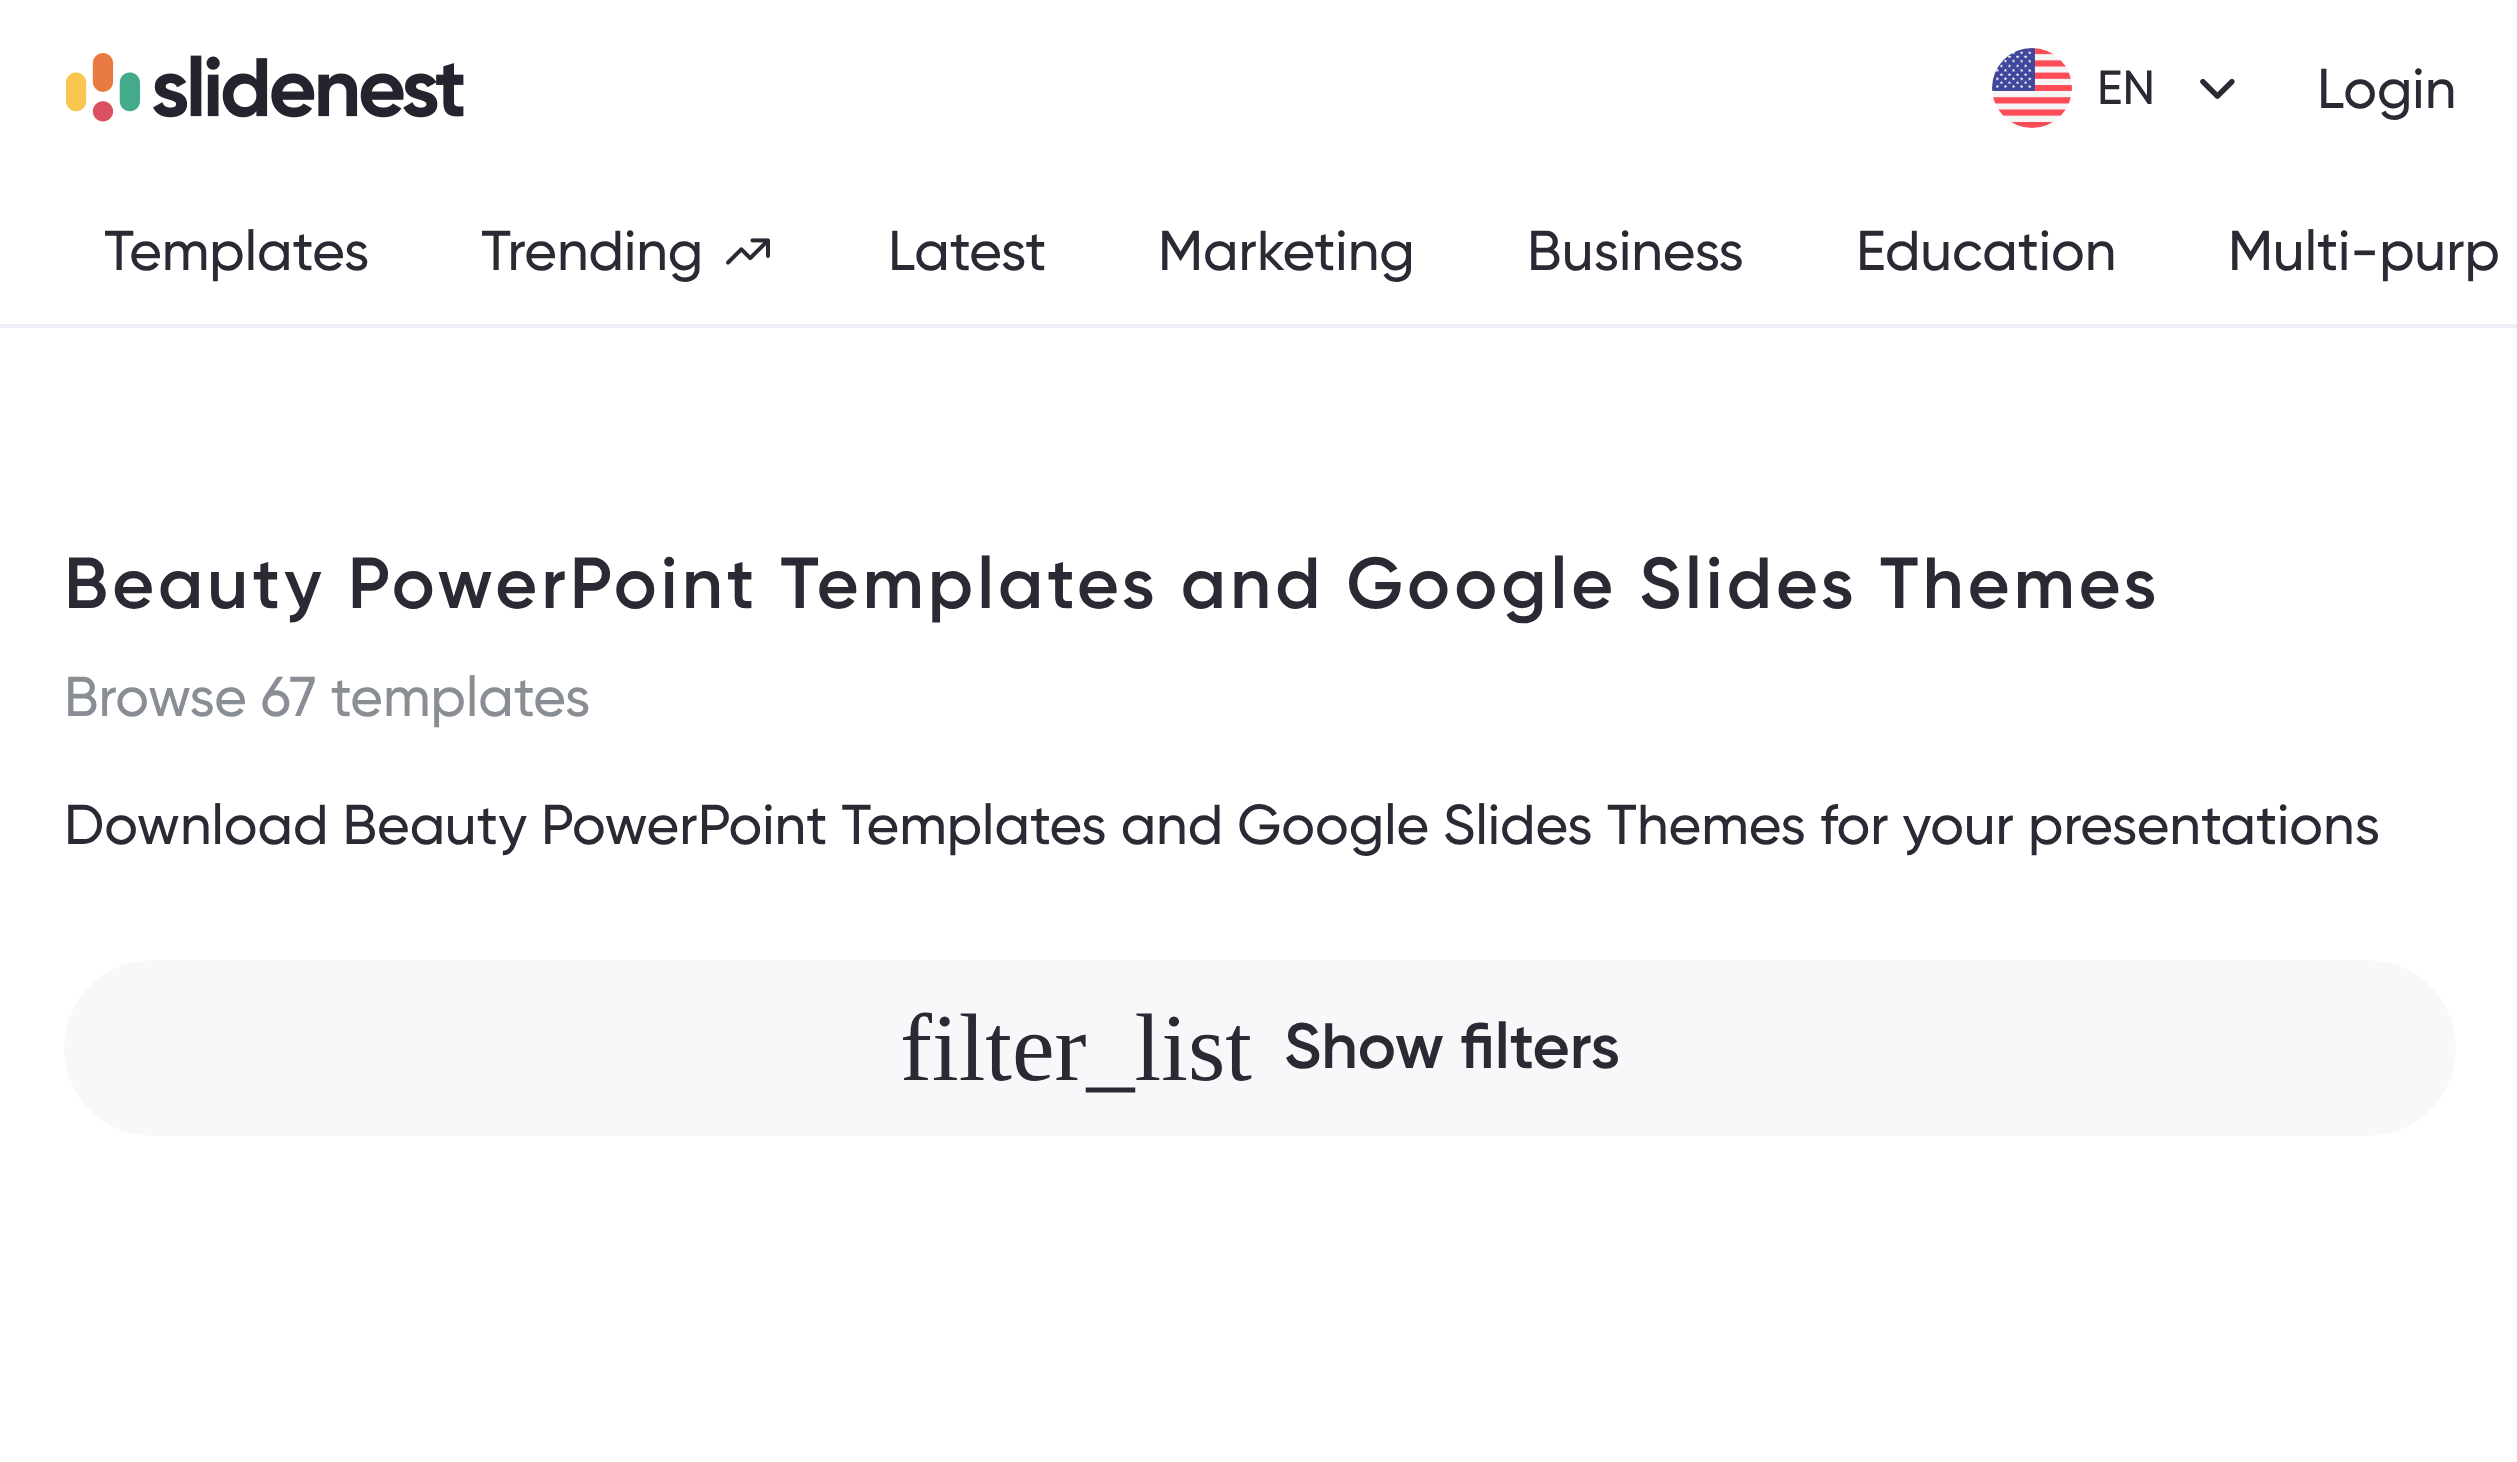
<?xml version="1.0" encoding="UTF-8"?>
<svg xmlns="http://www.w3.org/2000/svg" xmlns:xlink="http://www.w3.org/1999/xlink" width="2517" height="1462">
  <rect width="100%" height="100%" fill="#ffffff" />
  <image x="65" y="53" width="399" height="69" xlink:href="image1.png" />
  <image x="1992" y="48" width="80" height="80" xlink:href="image2.png" />
  <image x="2200" y="78" width="35" height="21" xlink:href="image3.png" />
  <rect y="324" width="2517" height="4" fill="#eceff9" />
  <image x="726" y="238" width="44" height="27" xlink:href="image4.png" />
  <rect x="64" y="960" width="2392" height="176" rx="88" fill="#f7f8fa" />
  <text x="2097" y="104" style="font-family: Gilroy; font-size: 48px; font-weight: 500; fill: #2b2a34">EN</text>
  <text x="2317" y="108" style="font-family: Gilroy; font-size: 56px; font-weight: 500; fill: #2b2a34">Login</text>
  <text x="104" y="270" style="font-family: Gilroy; font-size: 56px; font-weight: 500; fill: #2b2a34">Templates</text>
  <text x="481" y="270" style="font-family: Gilroy; font-size: 56px; font-weight: 500; fill: #2b2a34">Trending</text>
  <text x="888" y="270" style="font-family: Gilroy; font-size: 56px; font-weight: 500; fill: #2b2a34">Latest</text>
  <text x="1158" y="270" style="font-family: Gilroy; font-size: 56px; font-weight: 500; fill: #2b2a34">Marketing</text>
  <text x="1527" y="270" style="font-family: Gilroy; font-size: 56px; font-weight: 500; fill: #2b2a34">Business</text>
  <text x="1856" y="270" style="font-family: Gilroy; font-size: 56px; font-weight: 500; fill: #2b2a34">Education</text>
  <text x="2228" y="270" style="font-family: Gilroy; font-size: 56px; font-weight: 500; fill: #2b2a34">Multi-purp</text>
  <text x="64" y="608" style="font-family: Gilroy; font-size: 72px; font-weight: 600; letter-spacing: 4px; fill: #2b2a34">Beauty PowerPoint Templates and Google Slides Themes</text>
  <text x="64" y="716" style="font-family: Gilroy; font-size: 56px; font-weight: 500; fill: #898e94">Browse 67 templates</text>
  <text x="64" y="844" style="font-family: Gilroy; font-size: 56px; font-weight: 500; fill: #2b2a34">Download Beauty PowerPoint Templates and Google Slides Themes for your presentations</text>
  <text x="900" y="1080" style="font-family: Liberation Serif; font-size: 96px; fill: #2b2a34">filter_list</text>
  <text x="1284" y="1068" style="font-family: Gilroy; font-size: 64px; font-weight: 600; fill: #2b2a34">Show filters</text>
</svg>
